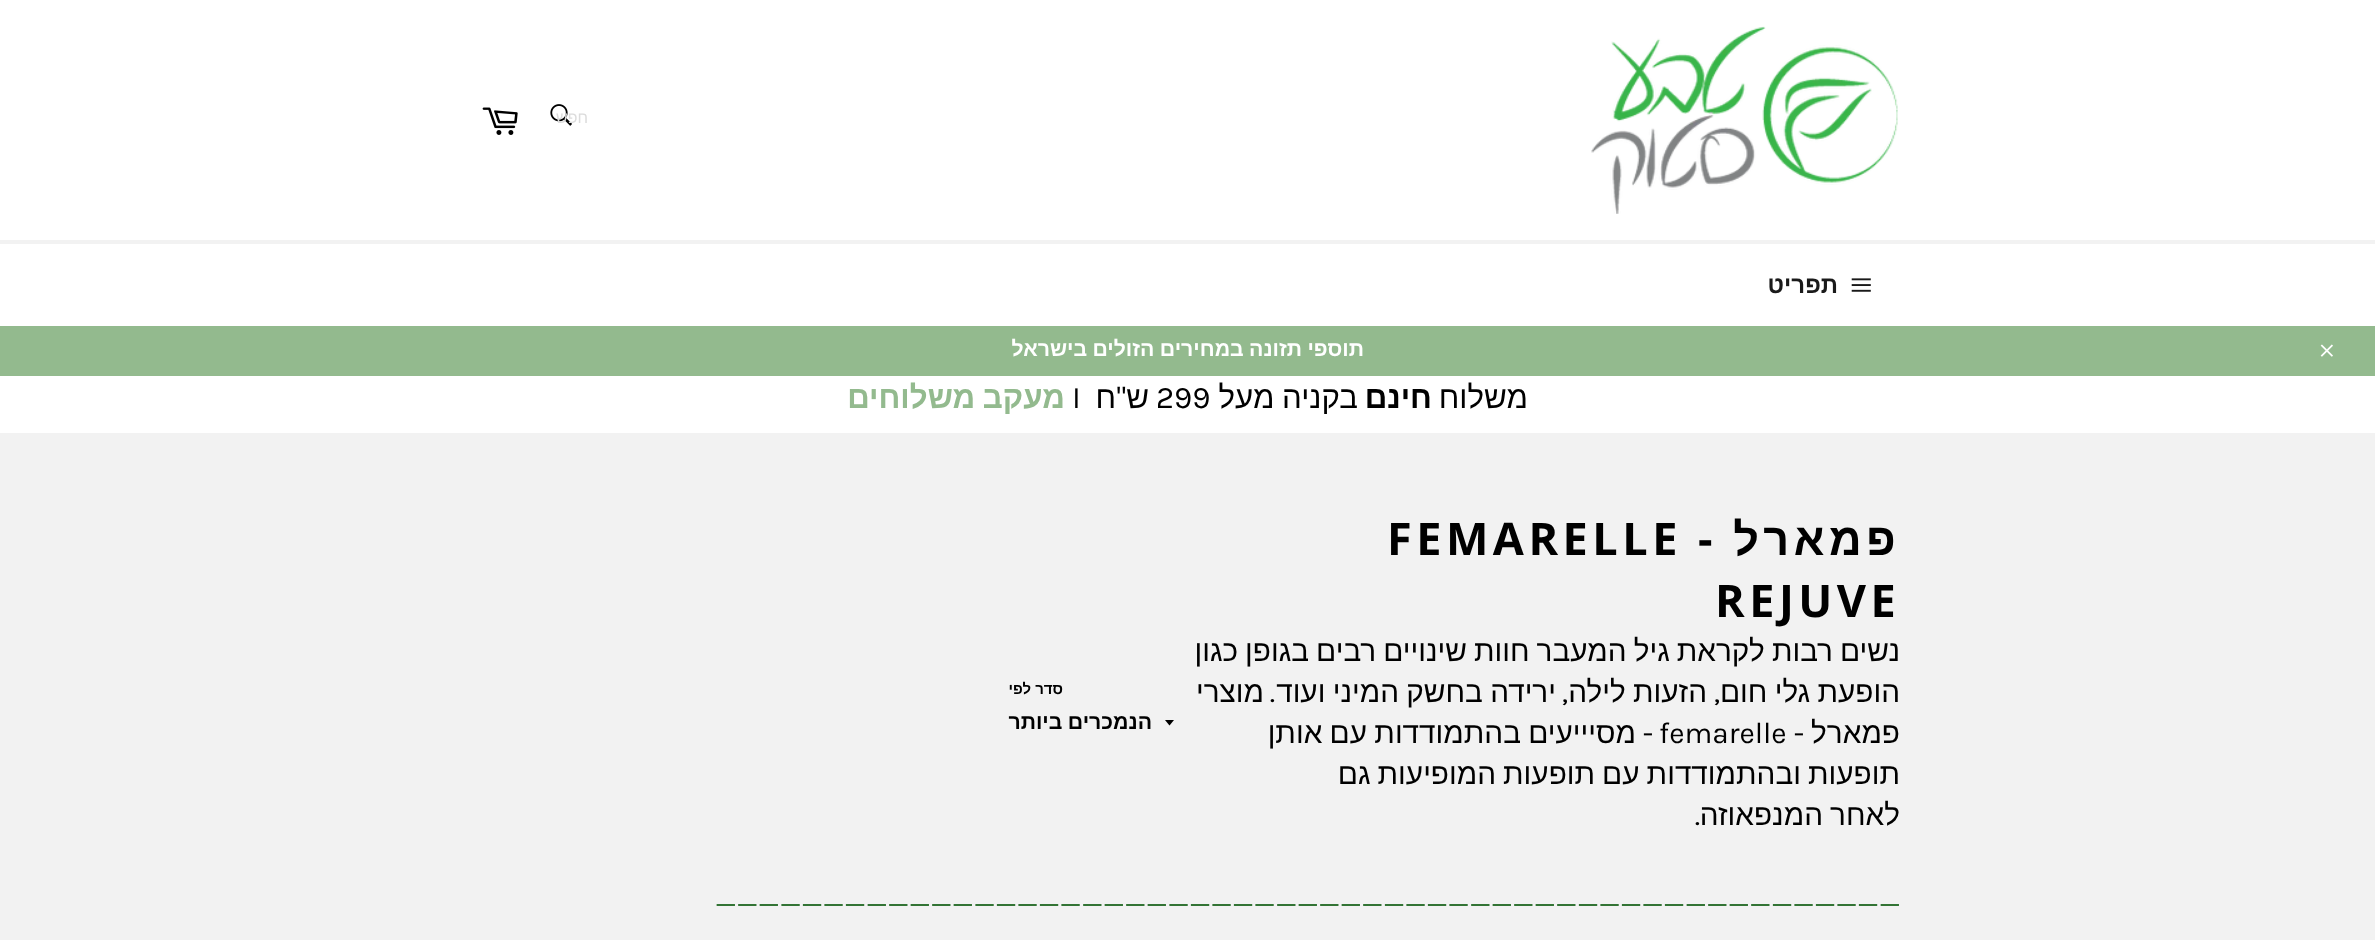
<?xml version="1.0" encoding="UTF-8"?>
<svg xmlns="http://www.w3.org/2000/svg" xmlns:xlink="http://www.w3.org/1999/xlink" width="2375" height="940">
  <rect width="100%" height="100%" fill="#ffffff" />
  <image x="1591" y="26" width="307" height="188" xlink:href="image1.png" />
  <image x="550" y="104" width="22" height="22" xlink:href="image2.png" />
  <image x="482" y="107" width="36" height="28" xlink:href="image3.png" />
  <rect y="240" width="2375" height="4" fill="#f2f2f2" />
  <image x="1851" y="278" width="20" height="14" xlink:href="image4.png" />
  <rect y="326" width="2375" height="50" fill="#93ba8e" />
  <image x="2320" y="344" width="13" height="13" xlink:href="image5.png" />
  <rect y="433" width="2375" height="507" fill="#f2f2f2" />
  <path d="M 1165 720 l 4.5 5.5 l 4.5 -5.5 z" fill="#000000" />
  <text x="588" y="123" style="font-family: Liberation Sans; font-size: 16px; direction: rtl; fill: #dcdcdc">חפש</text>
  <text x="1838" y="293" style="font-family: Liberation Sans; font-size: 24px; font-weight: bold; direction: rtl; fill: #1a1a1a">תפריט</text>
  <text x="1364" y="356" word-spacing="-0.5" style="font-family: Liberation Sans; font-size: 21.25px; font-weight: bold; direction: rtl; fill: #ffffff">תוספי תזונה במחירים הזולים בישראל</text>
  <text x="1528" y="408" style="font-family: Liberation Sans; font-size: 31.25px; direction: rtl; fill: #000000">משלוח</text>
  <text x="1432" y="408" style="font-family: Liberation Sans; font-size: 31.25px; font-weight: bold; direction: rtl; fill: #000000">חינם</text>
  <text x="1358" y="408" word-spacing="-1" style="font-family: Liberation Sans; font-size: 31.25px; direction: rtl; fill: #000000">בקניה מעל</text>
  <text x="1156" y="408" style="font-family: Karla; font-size: 31.25px; fill: #000000">299</text>
  <text x="1149" y="408" style="font-family: Liberation Sans; font-size: 31.25px; direction: rtl; fill: #000000">ש</text>
  <text x="1126" y="408" style="font-family: Karla; font-size: 31.25px; direction: rtl; fill: #000000">"</text>
  <text x="1116" y="408" style="font-family: Liberation Sans; font-size: 31.25px; direction: rtl; fill: #000000">ח</text>
  <text x="1072" y="408" style="font-family: Karla; font-size: 31.25px; fill: #000000">I</text>
  <text x="1065" y="408" word-spacing="-1" style="font-family: Liberation Sans; font-size: 31.25px; font-weight: bold; direction: rtl; fill: #93ba8e">מעקב משלוחים</text>
  <text x="1900" y="555" style="font-family: Liberation Sans; font-size: 45px; font-weight: bold; letter-spacing: 4.5px; direction: rtl; fill: #000000">פמארל</text>
  <text x="1717" y="555" style="font-family: Open Sans; font-size: 45px; font-weight: bold; letter-spacing: 4.5px; direction: rtl; fill: #000000">-</text>
  <text x="1387" y="555" style="font-family: Open Sans; font-size: 45px; font-weight: bold; letter-spacing: 4.5px; fill: #000000">FEMARELLE</text>
  <text x="1715" y="617" style="font-family: Open Sans; font-size: 45px; font-weight: bold; letter-spacing: 4.5px; fill: #000000">REJUVE</text>
  <text x="1900" y="661" word-spacing="-1.25" style="font-family: Liberation Sans; font-size: 29.75px; direction: rtl; fill: #000000">נשים רבות לקראת גיל המעבר חוות שינויים רבים בגופן כגון</text>
  <text x="1900" y="702" word-spacing="-1" style="font-family: Liberation Sans; font-size: 29.75px; direction: rtl; fill: #000000">הופעת גלי חום</text>
  <text x="1720" y="702" style="font-family: Karla; font-size: 29.75px; direction: rtl; fill: #000000">,</text>
  <text x="1707" y="702" word-spacing="-1" style="font-family: Liberation Sans; font-size: 29.75px; direction: rtl; fill: #000000">הזעות לילה</text>
  <text x="1568" y="702" style="font-family: Karla; font-size: 29.75px; direction: rtl; fill: #000000">,</text>
  <text x="1556" y="702" word-spacing="-1" style="font-family: Liberation Sans; font-size: 29.75px; direction: rtl; fill: #000000">ירידה בחשק המיני ועוד</text>
  <text x="1275" y="702" style="font-family: Karla; font-size: 29.75px; direction: rtl; fill: #000000">.</text>
  <text x="1264" y="702" style="font-family: Liberation Sans; font-size: 29.75px; direction: rtl; fill: #000000">מוצרי</text>
  <text x="1900" y="743" style="font-family: Liberation Sans; font-size: 29.75px; direction: rtl; fill: #000000">פמארל</text>
  <text x="1804" y="743" style="font-family: Karla; font-size: 29.75px; direction: rtl; fill: #000000">-</text>
  <text x="1659" y="743" style="font-family: Karla; font-size: 29.75px; fill: #000000">femarelle</text>
  <text x="1653" y="743" style="font-family: Karla; font-size: 29.75px; direction: rtl; fill: #000000">-</text>
  <text x="1636" y="743" word-spacing="-1" style="font-family: Liberation Sans; font-size: 29.75px; direction: rtl; fill: #000000">מסיייעים בהתמודדות עם אותן</text>
  <text x="1900" y="784" word-spacing="-1.25" style="font-family: Liberation Sans; font-size: 29.75px; direction: rtl; fill: #000000">תופעות ובהתמודדות עם תופעות המופיעות גם</text>
  <text x="1900" y="825" style="font-family: Liberation Sans; font-size: 29.75px; direction: rtl; fill: #000000">לאחר</text>
  <text x="1823" y="825" style="font-family: Liberation Sans; font-size: 29.75px; direction: rtl; fill: #000000">המנפאוזה</text>
  <text x="1700" y="825" style="font-family: Karla; font-size: 29.75px; direction: rtl; fill: #000000">.</text>
  <text x="715" y="906" style="font-family: Karla; font-size: 29.75px; fill: #337435">_______________________________________________________</text>
  <text x="1063" y="694" style="font-family: Liberation Sans; font-size: 15px; font-weight: bold; direction: rtl; fill: #000000">סדר לפי</text>
  <text x="1152" y="729" word-spacing="-0.5" style="font-family: Liberation Sans; font-size: 21.25px; font-weight: bold; direction: rtl; fill: #000000">הנמכרים ביותר</text>
</svg>
